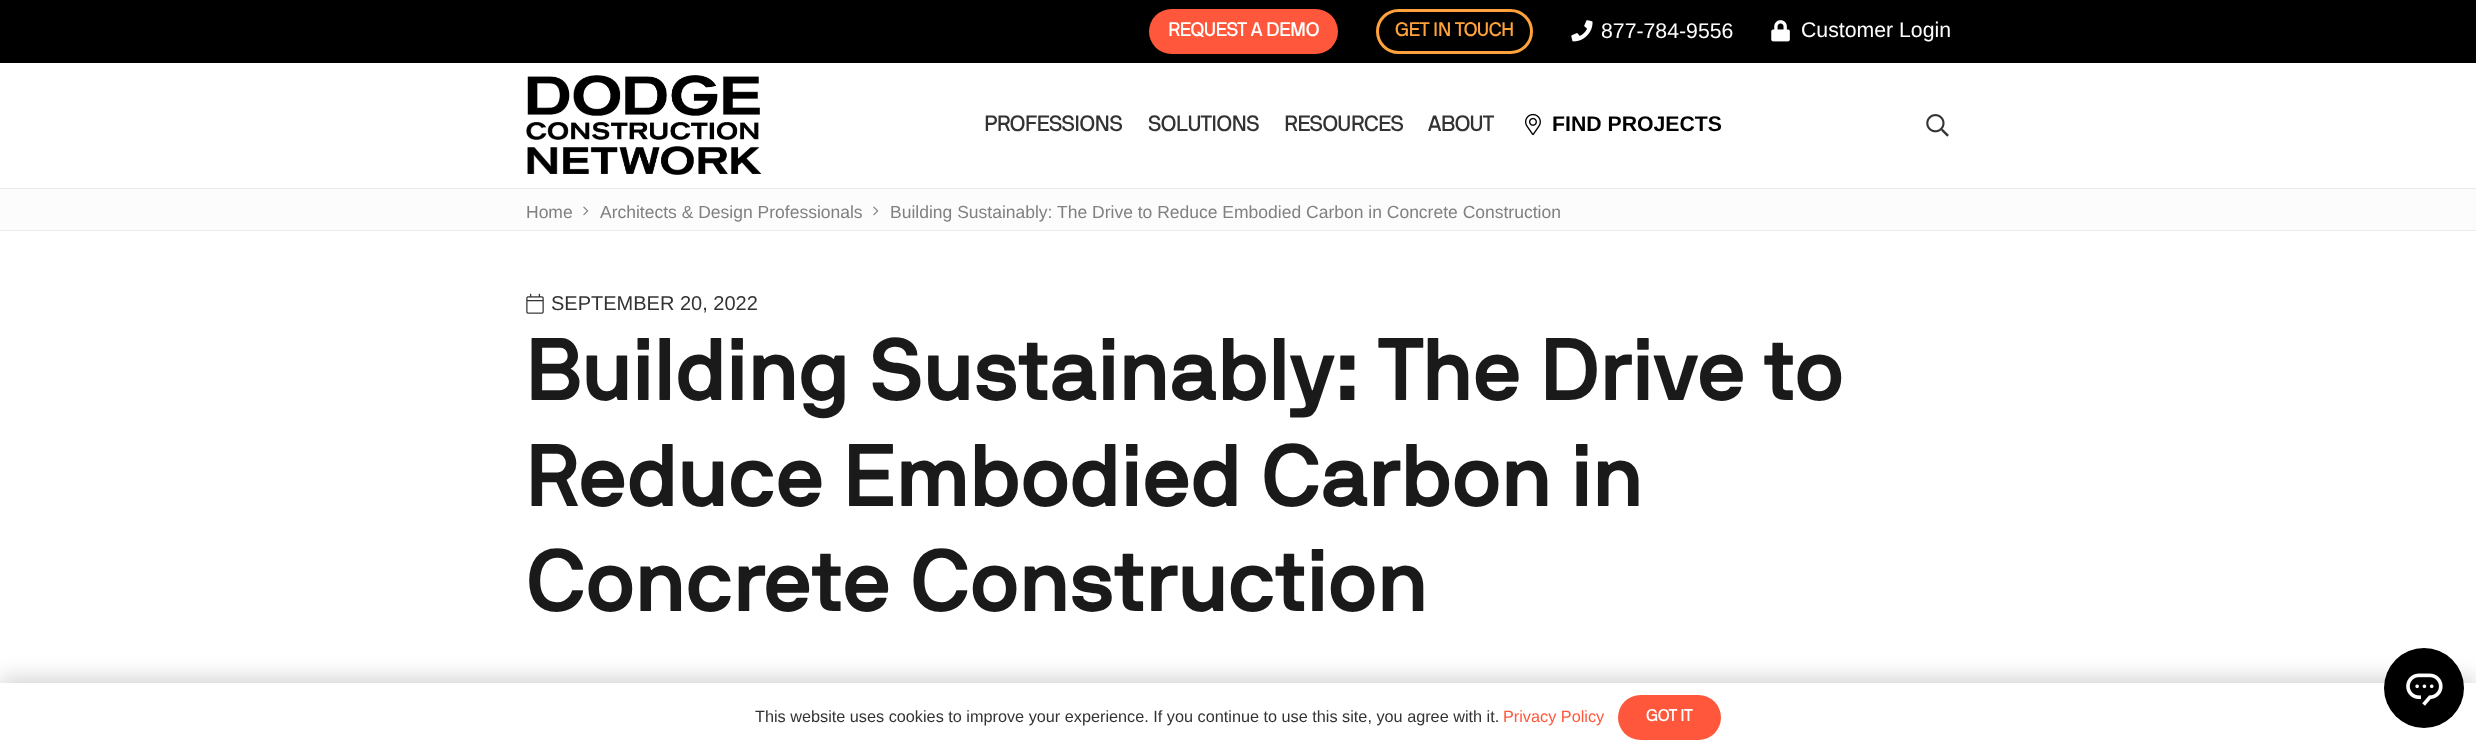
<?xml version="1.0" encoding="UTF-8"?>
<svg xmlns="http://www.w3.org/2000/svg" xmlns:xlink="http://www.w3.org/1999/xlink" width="2476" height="752">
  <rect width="100%" height="100%" fill="#ffffff" />
  <rect width="2476" height="63" fill="#000000" />
  <rect x="1149" y="9" width="189" height="45" rx="22.5" fill="#ff573b" />
  <rect x="1377.5" y="10.5" width="154" height="42" rx="21" fill="none" stroke="#ffa23b" stroke-width="3" />
  <image x="1571" y="20" width="22" height="22" xlink:href="image1.png" />
  <image x="1771" y="20" width="19" height="22" xlink:href="image2.png" />
  <rect y="188" width="2476" height="1" fill="#e8e8e8" />
  <image x="526" y="75" width="236" height="100" xlink:href="image3.png" />
  <image x="1525" y="113" width="16" height="23" xlink:href="image4.png" />
  <image x="1926" y="114" width="23" height="23" xlink:href="image5.png" />
  <rect y="189" width="2476" height="41" fill="#fcfcfc" />
  <rect y="230" width="2476" height="1" fill="#eaeaea" />
  <image x="583" y="206" width="6" height="10" xlink:href="image6.png" />
  <image x="873" y="206" width="6" height="10" xlink:href="image6.png" />
  <image x="526" y="293" width="18" height="21" xlink:href="image7.png" />
  <rect y="676" width="2476" height="70" fill="#000000" fill-opacity="0.15" filter="blur(9.5px)" />
  <rect y="683" width="2476" height="69" fill="#ffffff" />
  <rect x="1618" y="695" width="103" height="45" rx="22.5" fill="#ff573b" />
  <circle cx="2424" cy="688" r="40" fill="#000000" />
  <image x="2406" y="673" width="37" height="33" xlink:href="image8.png" />
  <text x="1168" y="36" style="font-family: 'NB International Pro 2'; font-size: 18.75px; font-weight: bold; fill: #ffffff">REQUEST A DEMO</text>
  <text x="1395" y="36" style="font-family: 'NB International Pro 2'; font-size: 18.75px; font-weight: bold; fill: #ffa23b">GET IN TOUCH</text>
  <text x="1601" y="38" style="font-family: Liberation Sans; font-size: 21.25px; fill: #ffffff">877-784-9556</text>
  <text x="1801" y="37" style="font-family: Liberation Sans; font-size: 21.25px; fill: #ffffff">Customer Login</text>
  <text x="984" y="131" style="font-family: 'NB International Pro 2'; font-size: 21.25px; font-weight: bold; fill: #333333">PROFESSIONS</text>
  <text x="1148" y="131" style="font-family: 'NB International Pro 2'; font-size: 21.25px; font-weight: bold; fill: #333333">SOLUTIONS</text>
  <text x="1284" y="131" style="font-family: 'NB International Pro 2'; font-size: 21.25px; font-weight: bold; fill: #333333">RESOURCES</text>
  <text x="1428" y="131" style="font-family: 'NB International Pro 2'; font-size: 21.25px; font-weight: bold; fill: #333333">ABOUT</text>
  <text x="1552" y="131" style="font-family: Liberation Sans; font-size: 21.25px; font-weight: bold; fill: #000000">FIND PROJECTS</text>
  <text x="526" y="218" style="font-family: Liberation Sans; font-size: 17.5px; fill: #808080">Home</text>
  <text x="600" y="218" style="font-family: Liberation Sans; font-size: 17.5px; fill: #808080">Architects &amp; Design Professionals</text>
  <text x="890" y="218" style="font-family: Liberation Sans; font-size: 17.5px; fill: #808080">Building Sustainably: The Drive to Reduce Embodied Carbon in Concrete Construction</text>
  <text x="551" y="310" style="font-family: Liberation Sans; font-size: 20px; fill: #333333">SEPTEMBER 20, 2022</text>
  <text x="526" y="400" style="font-family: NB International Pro; font-size: 88px; font-weight: bold; fill: #1a1a1a">Building Sustainably: The Drive to</text>
  <text x="526" y="506" style="font-family: NB International Pro; font-size: 88px; font-weight: bold; fill: #1a1a1a">Reduce Embodied Carbon in</text>
  <text x="526" y="611" style="font-family: NB International Pro; font-size: 88px; font-weight: bold; fill: #1a1a1a">Concrete Construction</text>
  <text x="755" y="722" style="font-family: Liberation Sans; font-size: 16.25px; fill: #333333">This website uses cookies to improve your experience. If you continue to use this site, you agree with it.</text>
  <text x="1503" y="722" style="font-family: Liberation Sans; font-size: 16.25px; fill: #ff573b">Privacy Policy</text>
  <text x="1646" y="721" style="font-family: 'NB International Pro 2'; font-size: 16.25px; font-weight: bold; fill: #ffffff">GOT IT</text>
</svg>
